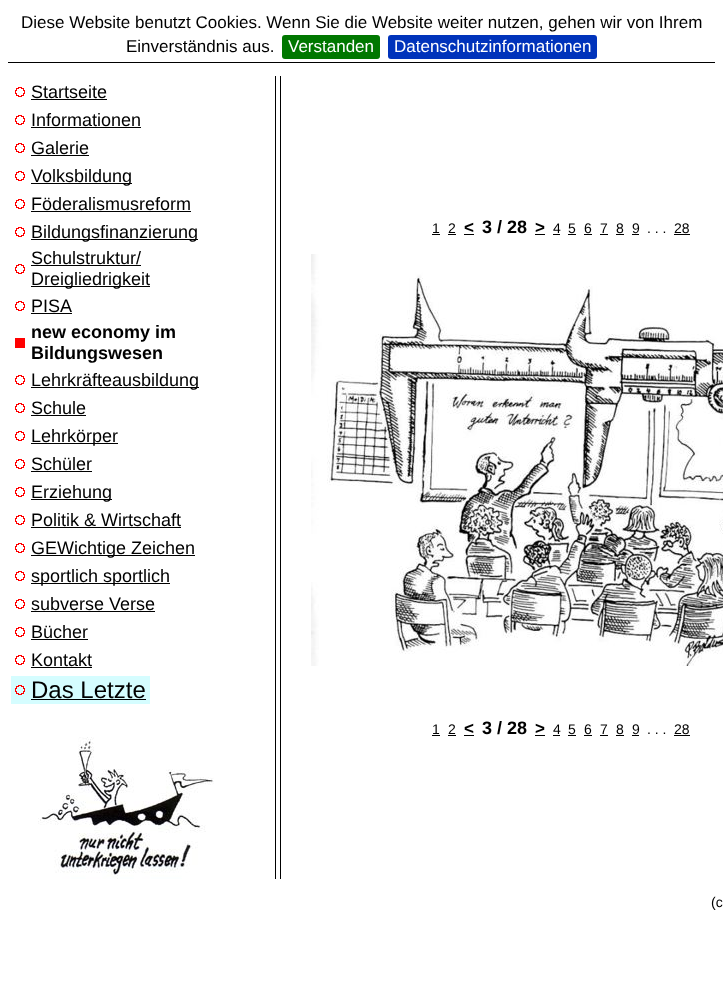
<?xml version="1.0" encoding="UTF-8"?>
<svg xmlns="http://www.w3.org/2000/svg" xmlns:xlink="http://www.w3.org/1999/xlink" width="723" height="1003">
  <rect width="100%" height="100%" fill="#ffffff" />
  <rect x="8" y="62" width="707" height="1" fill="#000000" />
  <rect x="282" y="35" width="98" height="24" rx="3" fill="#007700" />
  <rect x="388" y="35" width="209" height="24" rx="3" fill="#0033bb" />
  <image x="15" y="87" width="10" height="10" xlink:href="image1.png" />
  <rect x="31" y="99" width="76" height="1" fill="#000000" />
  <image x="15" y="115" width="10" height="10" xlink:href="image1.png" />
  <rect x="31" y="127" width="110" height="1" fill="#000000" />
  <image x="15" y="143" width="10" height="10" xlink:href="image1.png" />
  <rect x="31" y="155" width="58" height="1" fill="#000000" />
  <image x="15" y="171" width="10" height="10" xlink:href="image1.png" />
  <rect x="31" y="183" width="101" height="1" fill="#000000" />
  <image x="15" y="199" width="10" height="10" xlink:href="image1.png" />
  <rect x="31" y="211" width="160" height="1" fill="#000000" />
  <image x="15" y="227" width="10" height="10" xlink:href="image1.png" />
  <rect x="31" y="239" width="167" height="1" fill="#000000" />
  <image x="15" y="264" width="10" height="10" xlink:href="image1.png" />
  <rect x="31" y="265" width="110" height="1" fill="#000000" />
  <rect x="31" y="286" width="119" height="1" fill="#000000" />
  <image x="15" y="301" width="10" height="10" xlink:href="image1.png" />
  <rect x="31" y="313" width="41" height="1" fill="#000000" />
  <rect x="15" y="338" width="10" height="10" fill="#ff0000" />
  <image x="15" y="375" width="10" height="10" xlink:href="image1.png" />
  <rect x="31" y="387" width="168" height="1" fill="#000000" />
  <image x="15" y="403" width="10" height="10" xlink:href="image1.png" />
  <rect x="31" y="415" width="55" height="1" fill="#000000" />
  <image x="15" y="431" width="10" height="10" xlink:href="image1.png" />
  <rect x="31" y="443" width="87" height="1" fill="#000000" />
  <image x="15" y="459" width="10" height="10" xlink:href="image1.png" />
  <rect x="31" y="471" width="61" height="1" fill="#000000" />
  <image x="15" y="487" width="10" height="10" xlink:href="image1.png" />
  <rect x="31" y="499" width="81" height="1" fill="#000000" />
  <image x="15" y="515" width="10" height="10" xlink:href="image1.png" />
  <rect x="31" y="527" width="150" height="1" fill="#000000" />
  <image x="15" y="543" width="10" height="10" xlink:href="image1.png" />
  <rect x="31" y="555" width="164" height="1" fill="#000000" />
  <image x="15" y="571" width="10" height="10" xlink:href="image1.png" />
  <rect x="31" y="583" width="139" height="1" fill="#000000" />
  <image x="15" y="599" width="10" height="10" xlink:href="image1.png" />
  <rect x="31" y="611" width="124" height="1" fill="#000000" />
  <image x="15" y="627" width="10" height="10" xlink:href="image1.png" />
  <rect x="31" y="639" width="57" height="1" fill="#000000" />
  <image x="15" y="655" width="10" height="10" xlink:href="image1.png" />
  <rect x="31" y="667" width="61" height="1" fill="#000000" />
  <rect x="11" y="676" width="139" height="28" fill="#d5fdff" />
  <image x="15" y="685" width="10" height="10" xlink:href="image2.png" />
  <rect x="31" y="699" width="115" height="1" fill="#000000" />
  <rect x="280" y="76" width="1" height="803" fill="#000000" />
  <rect x="275" y="76" width="1" height="803" fill="#000000" />
  <rect x="432" y="234" width="8" height="1" fill="#000000" />
  <rect x="448" y="234" width="8" height="1" fill="#000000" />
  <rect x="464" y="234" width="10" height="1" fill="#000000" />
  <rect x="535" y="234" width="10" height="1" fill="#000000" />
  <rect x="553" y="234" width="7" height="1" fill="#000000" />
  <rect x="568" y="234" width="8" height="1" fill="#000000" />
  <rect x="584" y="234" width="8" height="1" fill="#000000" />
  <rect x="600" y="234" width="8" height="1" fill="#000000" />
  <rect x="616" y="234" width="8" height="1" fill="#000000" />
  <rect x="632" y="234" width="7" height="1" fill="#000000" />
  <rect x="674" y="234" width="16" height="1" fill="#000000" />
  <image x="311" y="254" width="412" height="412" xlink:href="image3.png" />
  <rect x="432" y="735" width="8" height="1" fill="#000000" />
  <rect x="448" y="735" width="8" height="1" fill="#000000" />
  <rect x="464" y="735" width="10" height="1" fill="#000000" />
  <rect x="535" y="735" width="10" height="1" fill="#000000" />
  <rect x="553" y="735" width="7" height="1" fill="#000000" />
  <rect x="568" y="735" width="8" height="1" fill="#000000" />
  <rect x="584" y="735" width="8" height="1" fill="#000000" />
  <rect x="600" y="735" width="8" height="1" fill="#000000" />
  <rect x="616" y="735" width="8" height="1" fill="#000000" />
  <rect x="632" y="735" width="7" height="1" fill="#000000" />
  <rect x="674" y="735" width="16" height="1" fill="#000000" />
  <image x="38" y="737" width="176" height="142" xlink:href="image4.png" />
  <text x="21" y="28" style="font-family: Liberation Sans; font-size: 17px; fill: #000000">Diese Website benutzt Cookies. Wenn Sie die Website weiter nutzen, gehen wir von Ihrem</text>
  <text x="126" y="52" style="font-family: Liberation Sans; font-size: 17px; fill: #000000">Einverständnis aus.</text>
  <text x="288" y="52" style="font-family: Liberation Sans; font-size: 17px; fill: #ffffff">Verstanden</text>
  <text x="394" y="52" style="font-family: Liberation Sans; font-size: 17px; fill: #ffffff">Datenschutzinformationen</text>
  <text x="31" y="98" style="font-family: Liberation Sans; font-size: 18px; fill: #000000">Startseite</text>
  <text x="31" y="126" style="font-family: Liberation Sans; font-size: 18px; fill: #000000">Informationen</text>
  <text x="31" y="154" style="font-family: Liberation Sans; font-size: 18px; fill: #000000">Galerie</text>
  <text x="31" y="182" style="font-family: Liberation Sans; font-size: 18px; fill: #000000">Volksbildung</text>
  <text x="31" y="210" style="font-family: Liberation Sans; font-size: 18px; fill: #000000">Föderalismusreform</text>
  <text x="31" y="238" style="font-family: Liberation Sans; font-size: 18px; fill: #000000">Bildungsfinanzierung</text>
  <text x="31" y="264" style="font-family: Liberation Sans; font-size: 18px; fill: #000000">Schulstruktur/</text>
  <text x="31" y="285" style="font-family: Liberation Sans; font-size: 18px; fill: #000000">Dreigliedrigkeit</text>
  <text x="31" y="312" style="font-family: Liberation Sans; font-size: 18px; fill: #000000">PISA</text>
  <text x="31" y="338" style="font-family: Liberation Sans; font-size: 18px; font-weight: bold; fill: #000000">new economy im</text>
  <text x="31" y="359" style="font-family: Liberation Sans; font-size: 18px; font-weight: bold; fill: #000000">Bildungswesen</text>
  <text x="31" y="386" style="font-family: Liberation Sans; font-size: 18px; fill: #000000">Lehrkräfteausbildung</text>
  <text x="31" y="414" style="font-family: Liberation Sans; font-size: 18px; fill: #000000">Schule</text>
  <text x="31" y="442" style="font-family: Liberation Sans; font-size: 18px; fill: #000000">Lehrkörper</text>
  <text x="31" y="470" style="font-family: Liberation Sans; font-size: 18px; fill: #000000">Schüler</text>
  <text x="31" y="498" style="font-family: Liberation Sans; font-size: 18px; fill: #000000">Erziehung</text>
  <text x="31" y="526" style="font-family: Liberation Sans; font-size: 18px; fill: #000000">Politik &amp; Wirtschaft</text>
  <text x="31" y="554" style="font-family: Liberation Sans; font-size: 18px; fill: #000000">GEWichtige Zeichen</text>
  <text x="31" y="582" style="font-family: Liberation Sans; font-size: 18px; fill: #000000">sportlich sportlich</text>
  <text x="31" y="610" style="font-family: Liberation Sans; font-size: 18px; fill: #000000">subverse Verse</text>
  <text x="31" y="638" style="font-family: Liberation Sans; font-size: 18px; fill: #000000">Bücher</text>
  <text x="31" y="666" style="font-family: Liberation Sans; font-size: 18px; fill: #000000">Kontakt</text>
  <text x="31" y="698" style="font-family: Liberation Sans; font-size: 24px; fill: #000000">Das Letzte</text>
  <text x="432" y="233" style="font-family: Liberation Sans; font-size: 14px; fill: #000000">1</text>
  <text x="448" y="233" style="font-family: Liberation Sans; font-size: 14px; fill: #000000">2</text>
  <text x="464" y="233" style="font-family: Liberation Sans; font-size: 17px; font-weight: bold; fill: #000000">&lt;</text>
  <text x="482" y="233" style="font-family: Liberation Sans; font-size: 18px; font-weight: bold; fill: #000000">3 / 28</text>
  <text x="535" y="233" style="font-family: Liberation Sans; font-size: 17px; font-weight: bold; fill: #000000">&gt;</text>
  <text x="553" y="233" style="font-family: Liberation Sans; font-size: 14px; fill: #000000">4</text>
  <text x="568" y="233" style="font-family: Liberation Sans; font-size: 14px; fill: #000000">5</text>
  <text x="584" y="233" style="font-family: Liberation Sans; font-size: 14px; fill: #000000">6</text>
  <text x="600" y="233" style="font-family: Liberation Sans; font-size: 14px; fill: #000000">7</text>
  <text x="616" y="233" style="font-family: Liberation Sans; font-size: 14px; fill: #000000">8</text>
  <text x="632" y="233" style="font-family: Liberation Sans; font-size: 14px; fill: #000000">9</text>
  <text x="647" y="233" style="font-family: Liberation Sans; font-size: 14px; fill: #000000">. . .</text>
  <text x="674" y="233" style="font-family: Liberation Sans; font-size: 14px; fill: #000000">28</text>
  <text x="432" y="734" style="font-family: Liberation Sans; font-size: 14px; fill: #000000">1</text>
  <text x="448" y="734" style="font-family: Liberation Sans; font-size: 14px; fill: #000000">2</text>
  <text x="464" y="734" style="font-family: Liberation Sans; font-size: 17px; font-weight: bold; fill: #000000">&lt;</text>
  <text x="482" y="734" style="font-family: Liberation Sans; font-size: 18px; font-weight: bold; fill: #000000">3 / 28</text>
  <text x="535" y="734" style="font-family: Liberation Sans; font-size: 17px; font-weight: bold; fill: #000000">&gt;</text>
  <text x="553" y="734" style="font-family: Liberation Sans; font-size: 14px; fill: #000000">4</text>
  <text x="568" y="734" style="font-family: Liberation Sans; font-size: 14px; fill: #000000">5</text>
  <text x="584" y="734" style="font-family: Liberation Sans; font-size: 14px; fill: #000000">6</text>
  <text x="600" y="734" style="font-family: Liberation Sans; font-size: 14px; fill: #000000">7</text>
  <text x="616" y="734" style="font-family: Liberation Sans; font-size: 14px; fill: #000000">8</text>
  <text x="632" y="734" style="font-family: Liberation Sans; font-size: 14px; fill: #000000">9</text>
  <text x="647" y="734" style="font-family: Liberation Sans; font-size: 14px; fill: #000000">. . .</text>
  <text x="674" y="734" style="font-family: Liberation Sans; font-size: 14px; fill: #000000">28</text>
  <text x="711" y="907" style="font-family: Liberation Sans; font-size: 14px; fill: #000000">(c</text>
</svg>
